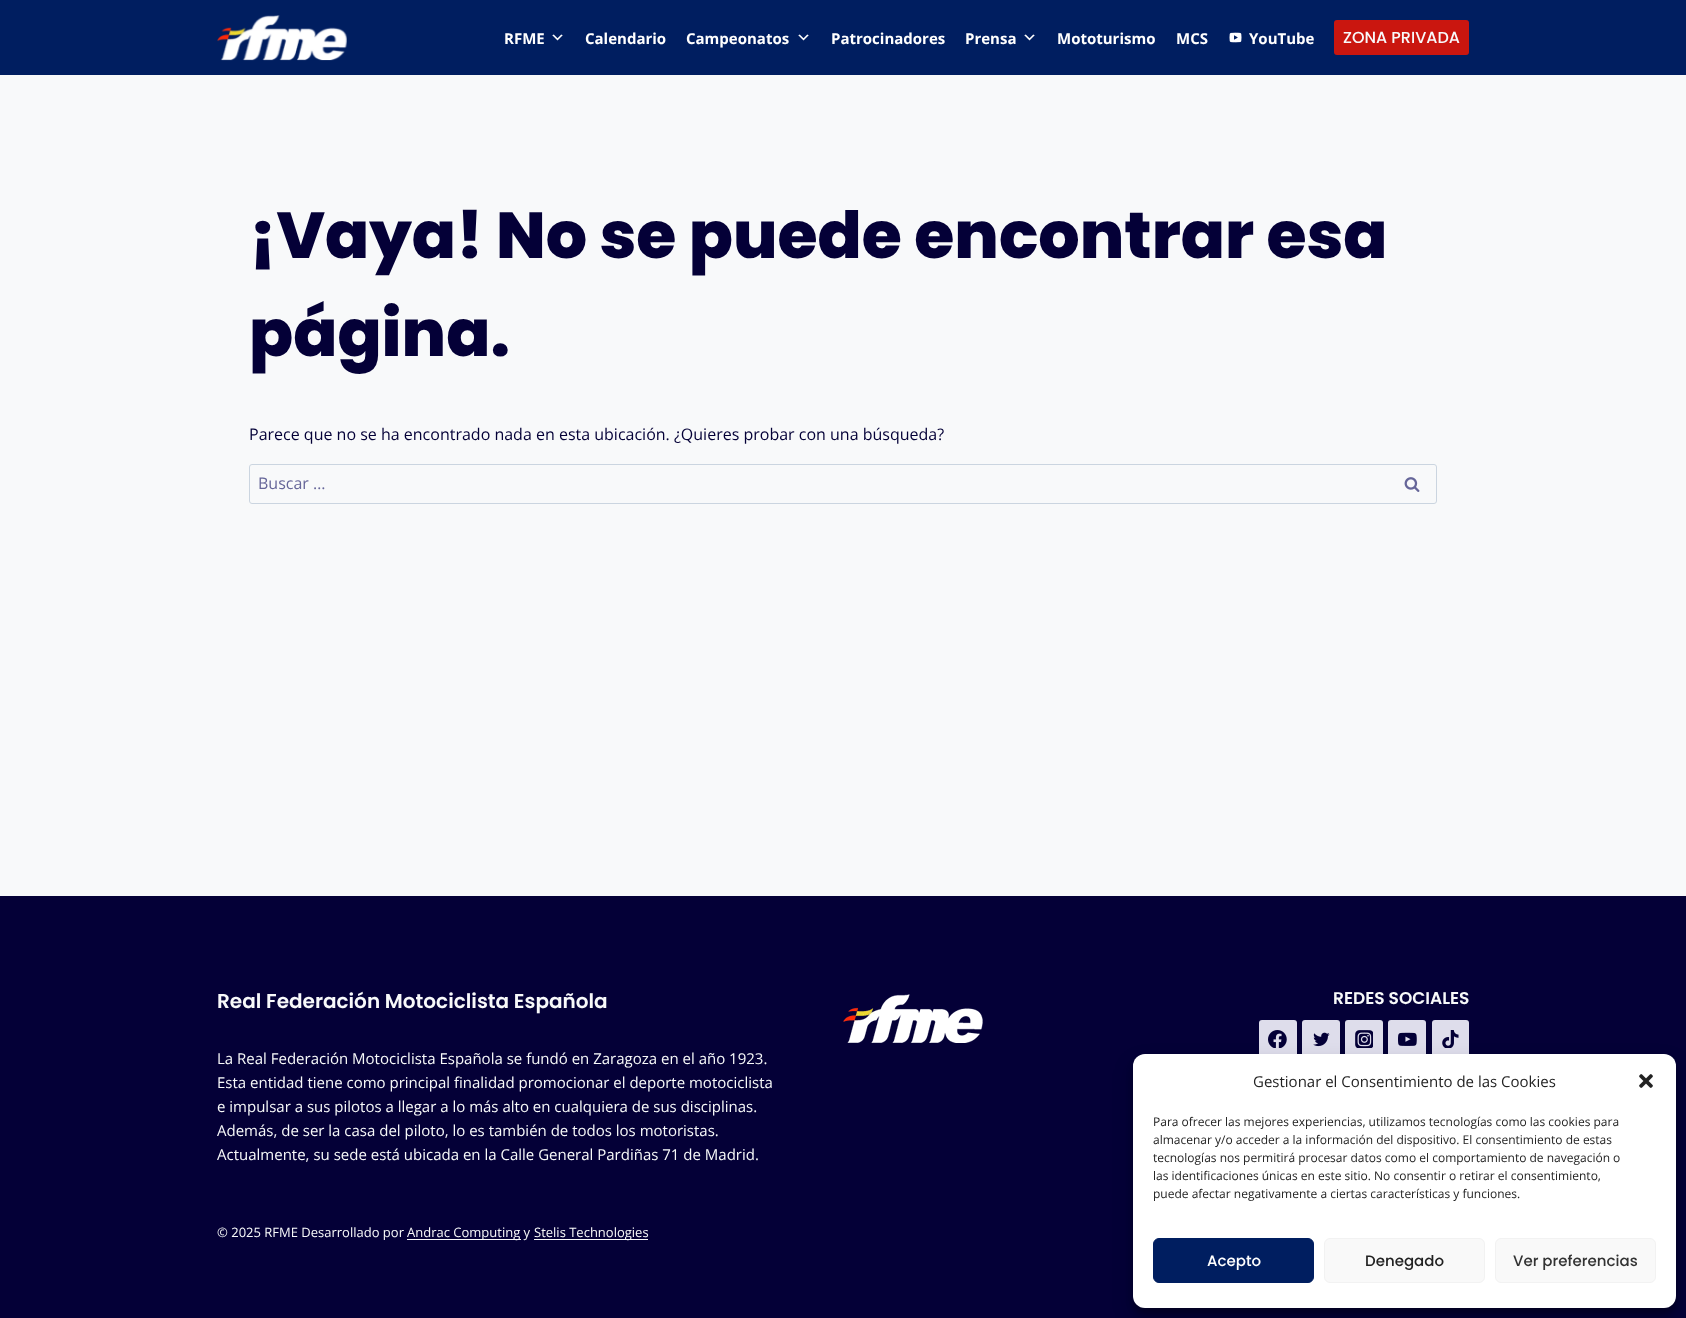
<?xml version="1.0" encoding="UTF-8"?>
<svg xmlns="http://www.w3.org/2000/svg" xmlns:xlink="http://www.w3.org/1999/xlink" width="1686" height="1318">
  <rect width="100%" height="100%" fill="#f8f9fa" />
  <rect width="1686" height="75" fill="#001e60" />
  <image x="217" y="15" width="130" height="46" xlink:href="image1.png" />
  <image x="552" y="34" width="11" height="7" xlink:href="image2.png" />
  <image x="798" y="34" width="11" height="7" xlink:href="image2.png" />
  <image x="1024" y="34" width="11" height="7" xlink:href="image2.png" />
  <image x="1229" y="32" width="13" height="11" xlink:href="image3.png" />
  <rect x="1334" y="20" width="135" height="35" rx="3" fill="#ca160f" />
  <rect x="249.5" y="464.5" width="1187" height="39" rx="2.5" fill="none" stroke="#cbd5e0" />
  <image x="1404" y="477" width="16" height="15" xlink:href="image4.png" />
  <rect y="896" width="1686" height="422" fill="#040037" />
  <image x="843" y="994" width="140" height="49" xlink:href="image5.png" />
  <rect x="1259" y="1020" width="38" height="38" rx="3" fill="#deddeb" />
  <image x="1268" y="1030" width="19" height="18" xlink:href="image6.png" />
  <rect x="1302" y="1020" width="38" height="38" rx="3" fill="#deddeb" />
  <image x="1313" y="1032" width="17" height="15" xlink:href="image7.png" />
  <rect x="1345" y="1020" width="38" height="38" rx="3" fill="#deddeb" />
  <image x="1355" y="1030" width="18" height="18" xlink:href="image8.png" />
  <rect x="1388" y="1020" width="38" height="38" rx="3" fill="#deddeb" />
  <image x="1398" y="1032" width="19" height="14" xlink:href="image9.png" />
  <rect x="1432" y="1020" width="37" height="38" rx="3" fill="#deddeb" />
  <image x="1442" y="1030" width="17" height="18" xlink:href="image10.png" />
  <rect x="407" y="1239" width="114" height="1" fill="#f8f9fa" />
  <rect x="534" y="1239" width="114" height="1" fill="#f8f9fa" />
  <rect x="1133" y="1060" width="543" height="254" rx="12" fill="#000000" fill-opacity="0.23" filter="blur(3px)" />
  <rect x="1133" y="1064" width="543" height="254" rx="12" fill="#000000" fill-opacity="0.19" filter="blur(10px)" />
  <rect x="1133" y="1054" width="543" height="254" rx="12" fill="#ffffff" />
  <image x="1639" y="1074" width="14" height="14" xlink:href="image11.png" />
  <rect x="1153.5" y="1238.5" width="160" height="44" rx="5.5" fill="#001e60" stroke="#001e60" />
  <rect x="1324.5" y="1238.5" width="160" height="44" rx="5.5" fill="#f9f9f9" stroke="#f2f2f2" />
  <rect x="1495.5" y="1238.5" width="160" height="44" rx="5.5" fill="#f9f9f9" stroke="#f2f2f2" />
  <text x="504" y="44" style="font-family: Open Sans; font-size: 15px; font-weight: bold; fill: #ffffff">RFME</text>
  <text x="585" y="44" style="font-family: Open Sans; font-size: 15px; font-weight: bold; fill: #ffffff">Calendario</text>
  <text x="686" y="44" style="font-family: Open Sans; font-size: 15px; font-weight: bold; fill: #ffffff">Campeonatos</text>
  <text x="831" y="44" style="font-family: Open Sans; font-size: 15px; font-weight: bold; fill: #ffffff">Patrocinadores</text>
  <text x="965" y="44" style="font-family: Open Sans; font-size: 15px; font-weight: bold; fill: #ffffff">Prensa</text>
  <text x="1057" y="44" style="font-family: Open Sans; font-size: 15px; font-weight: bold; fill: #ffffff">Mototurismo</text>
  <text x="1176" y="44" style="font-family: Open Sans; font-size: 15px; font-weight: bold; fill: #ffffff">MCS</text>
  <text x="1249" y="44" style="font-family: Open Sans; font-size: 15px; font-weight: bold; fill: #ffffff">YouTube</text>
  <text x="1343" y="43" style="font-family: Poppins; font-size: 16px; font-weight: 500; fill: #f8f9fa">ZONA PRIVADA</text>
  <text x="249" y="258" style="font-family: Poppins; font-size: 65px; font-weight: 800; fill: #040037">¡Vaya! No se puede encontrar esa</text>
  <text x="249" y="356" style="font-family: Poppins; font-size: 65px; font-weight: 800; fill: #040037">página.</text>
  <text x="249" y="440" style="font-family: Open Sans; font-size: 16px; fill: #040037">Parece que no se ha encontrado nada en esta ubicación. ¿Quieres probar con una búsqueda?</text>
  <text x="258" y="489" style="font-family: Open Sans; font-size: 16px; fill: #666699">Buscar …</text>
  <text x="217" y="1008" style="font-family: Poppins; font-size: 20px; font-weight: 600; fill: #f8f9fa">Real Federación Motociclista Española</text>
  <text x="217" y="1064" style="font-family: Open Sans; font-size: 15px; fill: #f8f9fa">La Real Federación Motociclista Española se fundó en Zaragoza en el año 1923.</text>
  <text x="217" y="1088" style="font-family: Open Sans; font-size: 15px; fill: #f8f9fa">Esta entidad tiene como principal finalidad promocionar el deporte motociclista</text>
  <text x="217" y="1112" style="font-family: Open Sans; font-size: 15px; fill: #f8f9fa">e impulsar a sus pilotos a llegar a lo más alto en cualquiera de sus disciplinas.</text>
  <text x="217" y="1136" style="font-family: Open Sans; font-size: 15px; fill: #f8f9fa">Además, de ser la casa del piloto, lo es también de todos los motoristas.</text>
  <text x="217" y="1160" style="font-family: Open Sans; font-size: 15px; fill: #f8f9fa">Actualmente, su sede está ubicada en la Calle General Pardiñas 71 de Madrid.</text>
  <text x="1333" y="1004" style="font-family: Poppins; font-size: 17px; font-weight: 600; fill: #f8f9fa">REDES SOCIALES</text>
  <text x="217" y="1237" style="font-family: Open Sans; font-size: 13px; fill: #f8f9fa">© 2025 RFME Desarrollado por</text>
  <text x="407" y="1237" style="font-family: Open Sans; font-size: 13px; fill: #f8f9fa">Andrac Computing y</text>
  <text x="534" y="1237" style="font-family: Open Sans; font-size: 13px; fill: #f8f9fa">Stelis Technologies</text>
  <text x="1253" y="1087" style="font-family: Open Sans; font-size: 15px; fill: #222222">Gestionar el Consentimiento de las Cookies</text>
  <text x="1153" y="1126" style="font-family: Open Sans; font-size: 12px; fill: #222222">Para ofrecer las mejores experiencias, utilizamos tecnologías como las cookies para</text>
  <text x="1153" y="1144" style="font-family: Open Sans; font-size: 12px; fill: #222222">almacenar y/o acceder a la información del dispositivo. El consentimiento de estas</text>
  <text x="1153" y="1162" style="font-family: Open Sans; font-size: 12px; fill: #222222">tecnologías nos permitirá procesar datos como el comportamiento de navegación o</text>
  <text x="1153" y="1180" style="font-family: Open Sans; font-size: 12px; fill: #222222">las identificaciones únicas en este sitio. No consentir o retirar el consentimiento,</text>
  <text x="1153" y="1198" style="font-family: Open Sans; font-size: 12px; fill: #222222">puede afectar negativamente a ciertas características y funciones.</text>
  <text x="1207" y="1266" style="font-family: Poppins; font-size: 15px; font-weight: 500; fill: #ffffff">Acepto</text>
  <text x="1365" y="1266" style="font-family: Poppins; font-size: 15px; font-weight: 500; fill: #222222">Denegado</text>
  <text x="1513" y="1266" style="font-family: Poppins; font-size: 15px; font-weight: 500; fill: #333333">Ver preferencias</text>
</svg>
